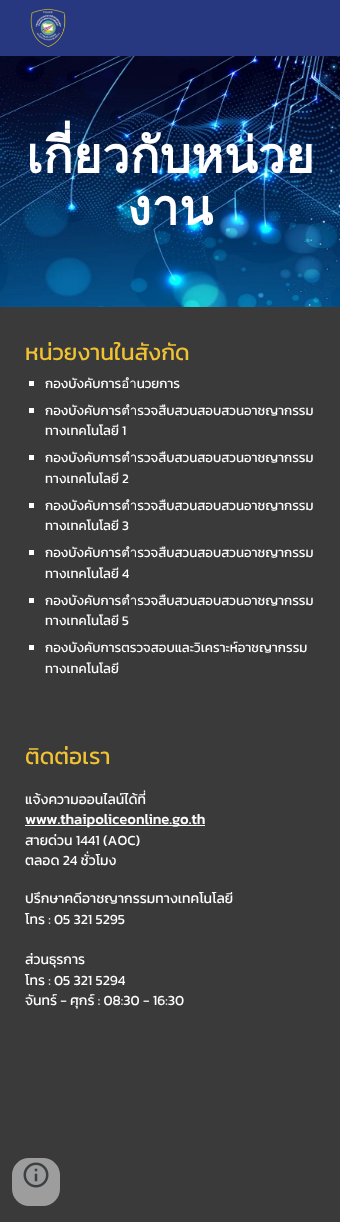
<?xml version="1.0" encoding="UTF-8"?>
<svg xmlns="http://www.w3.org/2000/svg" xmlns:xlink="http://www.w3.org/1999/xlink" width="340" height="1222">
  <rect width="100%" height="100%" fill="#ffffff" />
  <rect width="340" height="56" fill="#273880" />
  <image x="30" y="8" width="36" height="40" xlink:href="image1.png" />
  <image x="0" y="56" width="340" height="251" xlink:href="image2.png" />
  <rect y="307" width="340" height="915" fill="#3a3a3a" />
  <rect x="29" y="381" width="5" height="5" fill="#ffffff" />
  <rect x="29" y="408" width="5" height="5" fill="#ffffff" />
  <rect x="29" y="455" width="5" height="5" fill="#ffffff" />
  <rect x="29" y="503" width="5" height="5" fill="#ffffff" />
  <rect x="29" y="550" width="5" height="5" fill="#ffffff" />
  <rect x="29" y="598" width="5" height="5" fill="#ffffff" />
  <rect x="29" y="645" width="5" height="5" fill="#ffffff" />
  <rect x="25" y="825" width="180" height="1" fill="#ffffff" />
  <rect x="12" y="1158" width="48" height="48" rx="17" fill="#9d9d9d" />
  <image x="23" y="1162" width="26" height="26" xlink:href="image3.png" />
  <text x="26" y="173" style="font-family: Loma; font-size: 49.5px; font-weight: bold; fill: #ffffff">เกี่ยวกับหน่วย</text>
  <text x="127" y="225" style="font-family: Loma; font-size: 49.5px; font-weight: bold; fill: #ffffff">งาน</text>
  <text x="25" y="360" style="font-family: Kanit; font-size: 22.75px; fill: #f1c232">หน่วยงานในสังกัด</text>
  <text x="45" y="388" style="font-family: Kanit; font-size: 13.3px; fill: #ffffff">กองบังคับการอำนวยการ</text>
  <text x="45" y="415" style="font-family: Kanit; font-size: 13.3px; fill: #ffffff">กองบังคับการตำรวจสืบสวนสอบสวนอาชญากรรม</text>
  <text x="45" y="435" style="font-family: Kanit; font-size: 13.3px; fill: #ffffff">ทางเทคโนโลยี 1</text>
  <text x="45" y="462" style="font-family: Kanit; font-size: 13.3px; fill: #ffffff">กองบังคับการตำรวจสืบสวนสอบสวนอาชญากรรม</text>
  <text x="45" y="483" style="font-family: Kanit; font-size: 13.3px; fill: #ffffff">ทางเทคโนโลยี 2</text>
  <text x="45" y="510" style="font-family: Kanit; font-size: 13.3px; fill: #ffffff">กองบังคับการตำรวจสืบสวนสอบสวนอาชญากรรม</text>
  <text x="45" y="530" style="font-family: Kanit; font-size: 13.3px; fill: #ffffff">ทางเทคโนโลยี 3</text>
  <text x="45" y="557" style="font-family: Kanit; font-size: 13.3px; fill: #ffffff">กองบังคับการตำรวจสืบสวนสอบสวนอาชญากรรม</text>
  <text x="45" y="578" style="font-family: Kanit; font-size: 13.3px; fill: #ffffff">ทางเทคโนโลยี 4</text>
  <text x="45" y="605" style="font-family: Kanit; font-size: 13.3px; fill: #ffffff">กองบังคับการตำรวจสืบสวนสอบสวนอาชญากรรม</text>
  <text x="45" y="625" style="font-family: Kanit; font-size: 13.3px; fill: #ffffff">ทางเทคโนโลยี 5</text>
  <text x="45" y="652" style="font-family: Kanit; font-size: 13.3px; fill: #ffffff">กองบังคับการตรวจสอบและวิเคราะห์อาชญากรรม</text>
  <text x="45" y="673" style="font-family: Kanit; font-size: 13.3px; fill: #ffffff">ทางเทคโนโลยี</text>
  <text x="25" y="764" style="font-family: Kanit; font-size: 22.75px; fill: #f1c232">ติดต่อเรา</text>
  <text x="25" y="804" style="font-family: Kanit; font-size: 14px; fill: #ffffff">แจ้งความออนไลน์ได้ที่</text>
  <text x="25" y="824" style="font-family: Kanit; font-size: 14.75px; font-weight: 500; fill: #ffffff">www.thaipoliceonline.go.th</text>
  <text x="25" y="845" style="font-family: Kanit; font-size: 14px; fill: #ffffff">สายด่วน 1441 (AOC)</text>
  <text x="25" y="865" style="font-family: Kanit; font-size: 14px; fill: #ffffff">ตลอด 24 ชั่วโมง</text>
  <text x="25" y="903" style="font-family: Kanit; font-size: 14px; fill: #ffffff">ปรึกษาคดีอาชญากรรมทางเทคโนโลยี</text>
  <text x="25" y="924" style="font-family: Kanit; font-size: 14px; fill: #ffffff">โทร : 05 321 5295</text>
  <text x="25" y="964" style="font-family: Kanit; font-size: 14px; fill: #ffffff">ส่วนธุรการ</text>
  <text x="25" y="985" style="font-family: Kanit; font-size: 14px; fill: #ffffff">โทร : 05 321 5294</text>
  <text x="25" y="1005" style="font-family: Kanit; font-size: 14px; fill: #ffffff">จันทร์ - ศุกร์ : 08:30 - 16:30</text>
</svg>
